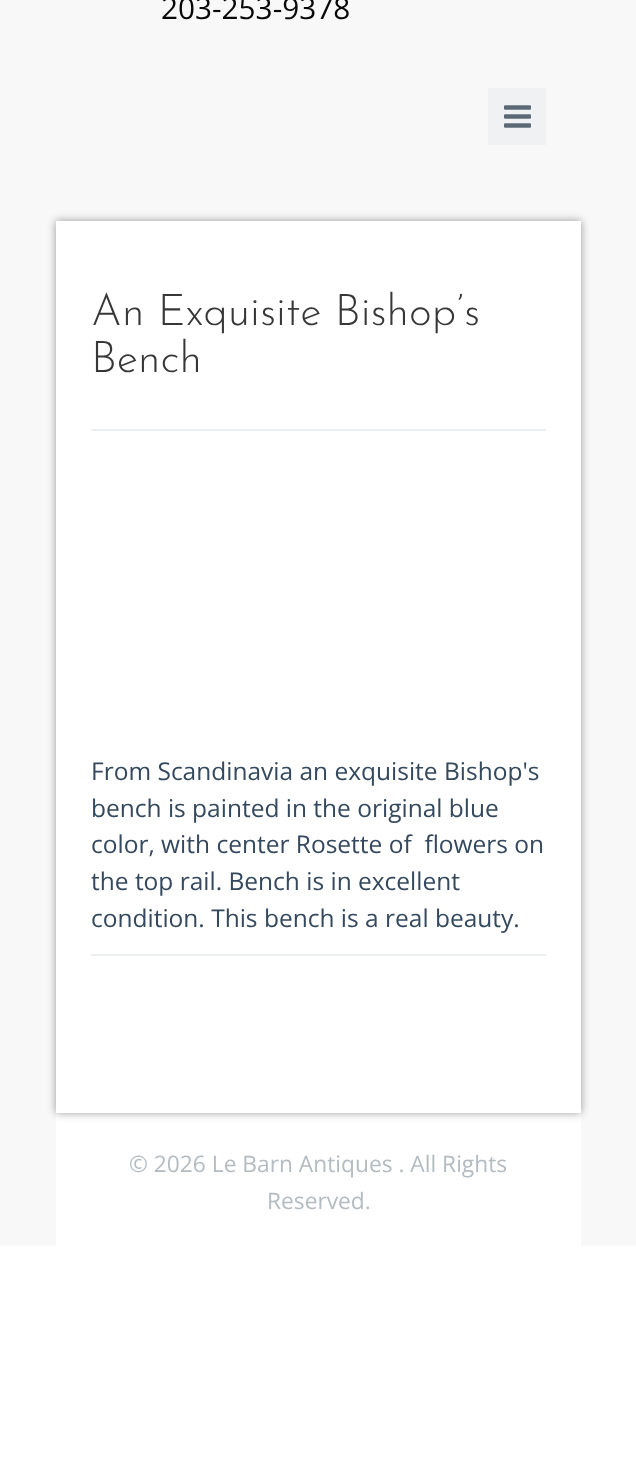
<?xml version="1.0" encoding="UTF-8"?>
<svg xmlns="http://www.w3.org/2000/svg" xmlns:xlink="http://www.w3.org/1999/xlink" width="636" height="1480">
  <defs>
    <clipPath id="clip1"><path d="M 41 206 h 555 v 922 h -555 z m 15 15 h 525 v 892 h -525 z" clip-rule="evenodd" /></clipPath>
  </defs>
  <rect width="100%" height="100%" fill="#ffffff" />
  <rect width="636" height="1246" fill="#f8f8f8" />
  <rect x="56" y="221" width="525" height="1025" fill="#ffffff" />
  <rect x="488" y="88" width="58" height="57" fill="#eff1f2" />
  <image x="504" y="105" width="27" height="23" xlink:href="image1.png" />
  <g clip-path="url(#clip1)">
    <rect x="56" y="221" width="525" height="892" fill="#000000" fill-opacity="0.2" filter="blur(4.5px)" />
    <rect x="56" y="221" width="525" height="892" fill="#000000" fill-opacity="0.2" filter="blur(4.5px)" />
  </g>
  <rect x="91" y="429" width="455" height="2" fill="#ebeff2" />
  <rect x="91" y="954" width="455" height="2" fill="#ebeff2" />
  <text x="161" y="19" style="font-family: Open Sans; font-size: 29.75px; fill: #090909">203-253-9378</text>
  <text x="91" y="325" style="font-family: Josefin Sans; font-size: 43.75px; font-weight: 300; fill: #373737">An Exquisite Bishop’s</text>
  <text x="91" y="372" style="font-family: Josefin Sans; font-size: 43.75px; font-weight: 300; fill: #373737">Bench</text>
  <text x="91" y="780" style="font-family: Open Sans; font-size: 24.5px; fill: #34495e">From Scandinavia an exquisite Bishop's</text>
  <text x="91" y="817" style="font-family: Open Sans; font-size: 24.5px; fill: #34495e">bench is painted in the original blue</text>
  <text x="91" y="853" style="font-family: Open Sans; font-size: 24.5px; fill: #34495e" xml:space="preserve">color, with center Rosette of  flowers on</text>
  <text x="91" y="890" style="font-family: Open Sans; font-size: 24.5px; fill: #34495e">the top rail. Bench is in excellent</text>
  <text x="91" y="927" style="font-family: Open Sans; font-size: 24.5px; fill: #34495e">condition. This bench is a real beauty.</text>
  <text x="129" y="1172" style="font-family: Open Sans; font-size: 22.75px; fill: #b4bbc1">© 2026 Le Barn Antiques . All Rights</text>
  <text x="267" y="1209" style="font-family: Open Sans; font-size: 22.75px; fill: #b4bbc1">Reserved.</text>
</svg>
